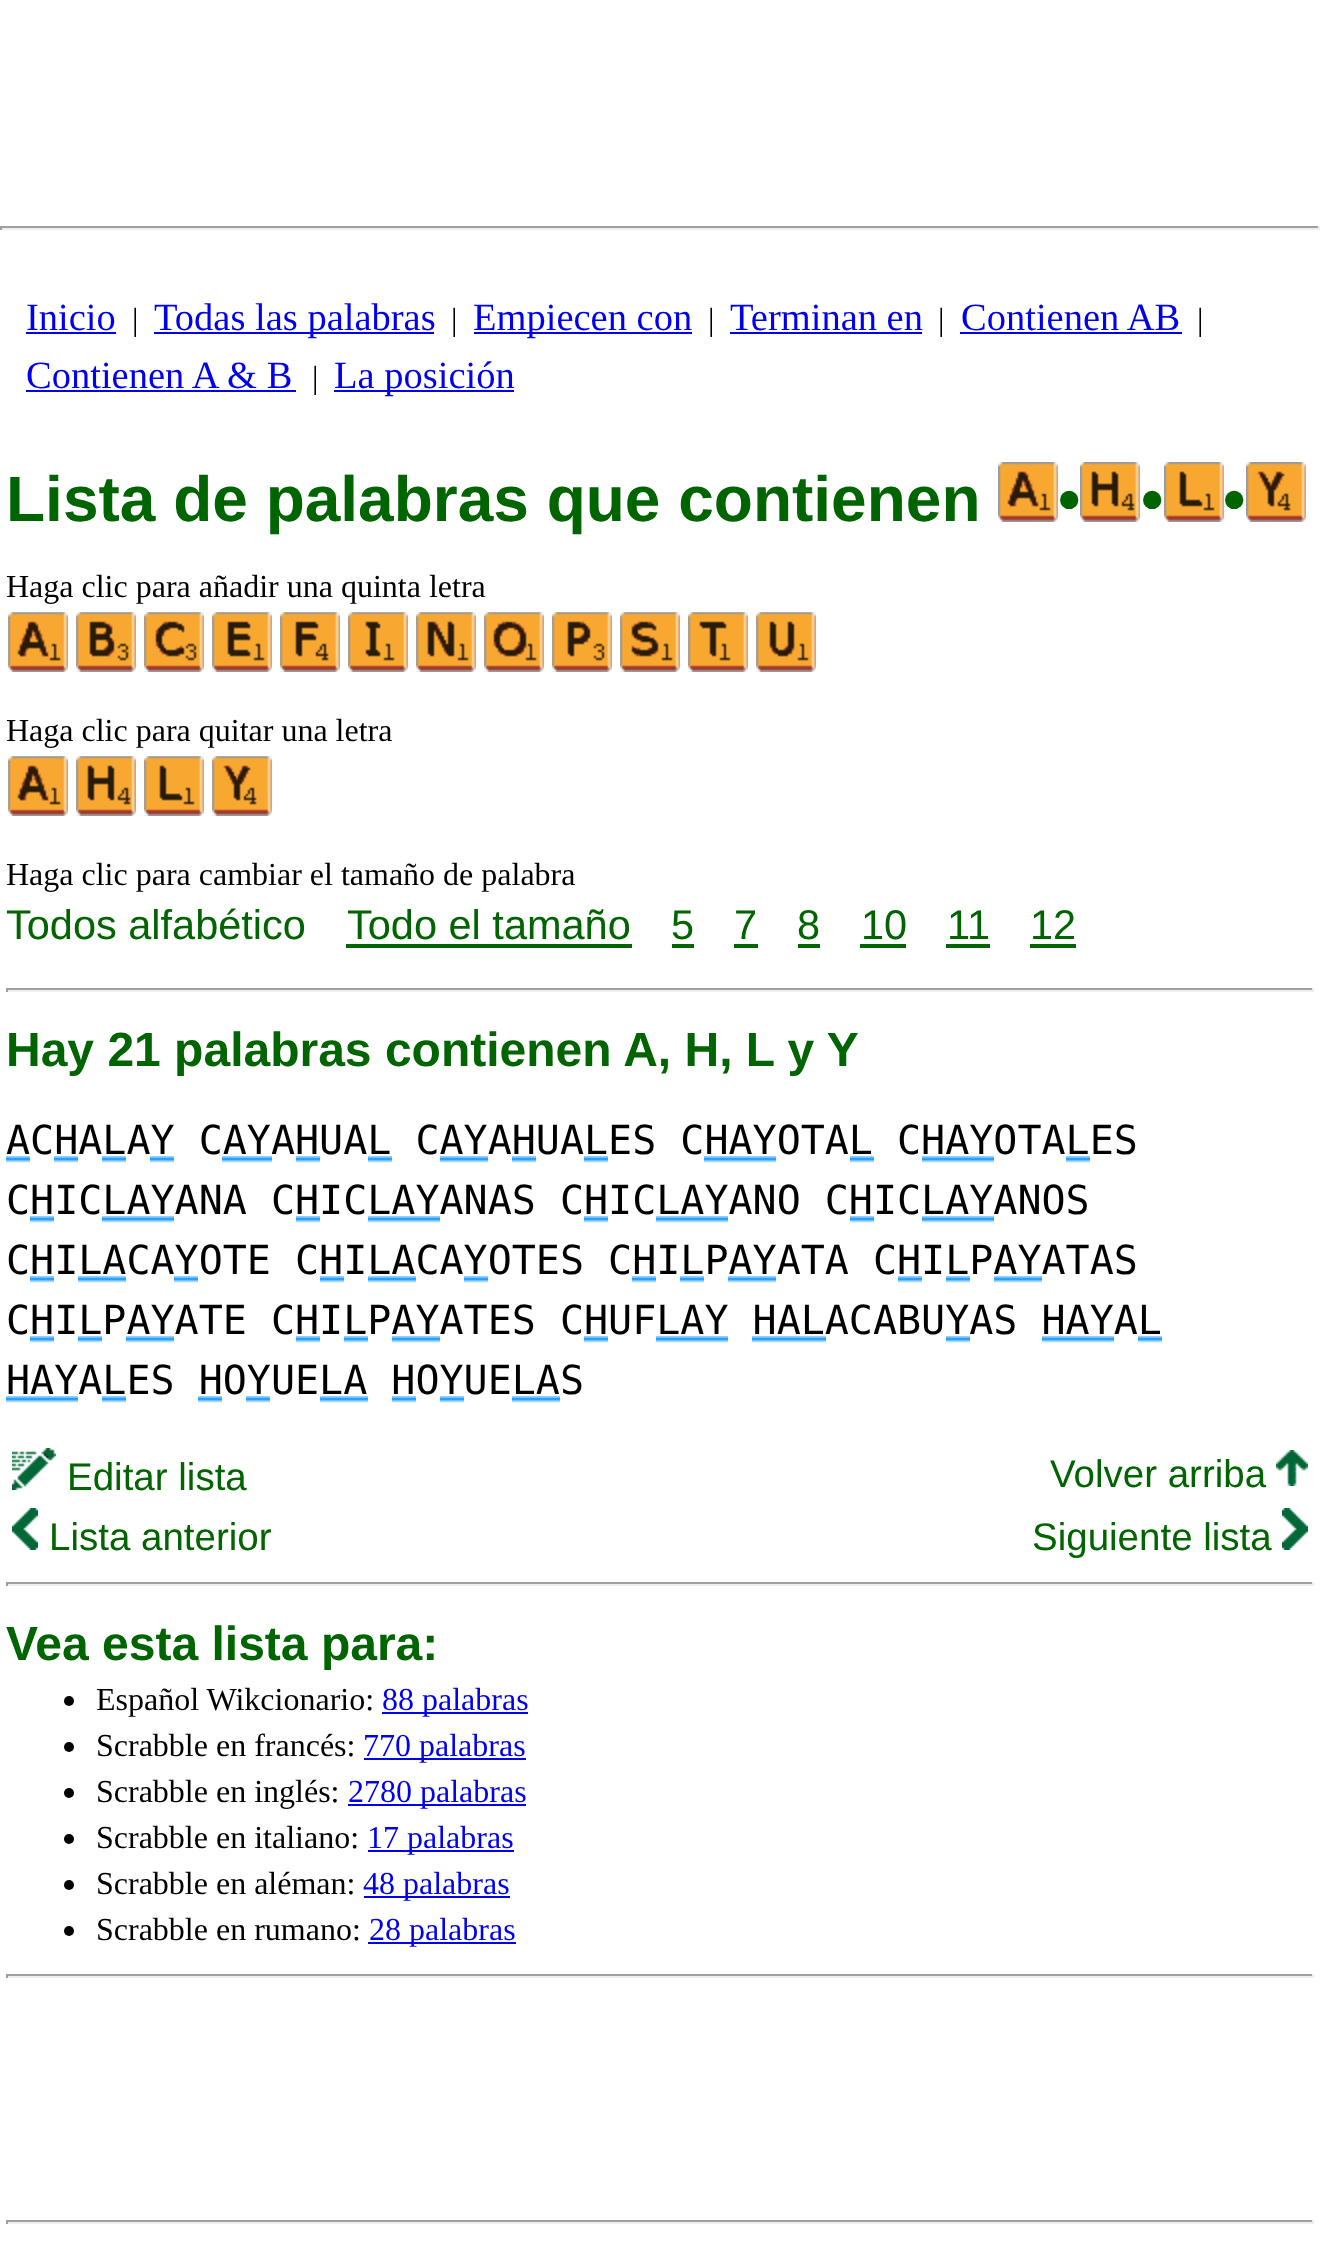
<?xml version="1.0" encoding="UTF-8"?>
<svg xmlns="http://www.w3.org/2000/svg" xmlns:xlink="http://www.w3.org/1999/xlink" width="1320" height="2245">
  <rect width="100%" height="100%" fill="#ffffff" />
  <rect y="226" width="1320" height="2" fill="#9f9f9f" />
  <rect x="1318" y="226" width="2" height="4" fill="#eeeeee" />
  <rect y="228" width="1320" height="2" fill="#eeeeee" />
  <rect y="226" width="2" height="4" fill="#9f9f9f" />
  <rect x="26" y="332" width="90" height="2" fill="#0000ee" />
  <rect x="154" y="332" width="280" height="2" fill="#0000ee" />
  <rect x="474" y="332" width="218" height="2" fill="#0000ee" />
  <rect x="730" y="332" width="192" height="2" fill="#0000ee" />
  <rect x="960" y="332" width="222" height="2" fill="#0000ee" />
  <rect x="26" y="390" width="270" height="2" fill="#0000ee" />
  <rect x="334" y="390" width="180" height="2" fill="#0000ee" />
  <image x="998" y="462" width="60" height="60" xlink:href="image1.png" />
  <image x="1080" y="462" width="60" height="60" xlink:href="image2.png" />
  <image x="1164" y="462" width="60" height="60" xlink:href="image3.png" />
  <image x="1246" y="462" width="60" height="60" xlink:href="image4.png" />
  <image x="8" y="612" width="60" height="60" xlink:href="image5.png" />
  <image x="76" y="612" width="60" height="60" xlink:href="image6.png" />
  <image x="144" y="612" width="60" height="60" xlink:href="image7.png" />
  <image x="212" y="612" width="60" height="60" xlink:href="image8.png" />
  <image x="280" y="612" width="60" height="60" xlink:href="image9.png" />
  <image x="348" y="612" width="60" height="60" xlink:href="image10.png" />
  <image x="416" y="612" width="60" height="60" xlink:href="image11.png" />
  <image x="484" y="612" width="60" height="60" xlink:href="image12.png" />
  <image x="552" y="612" width="60" height="60" xlink:href="image13.png" />
  <image x="620" y="612" width="60" height="60" xlink:href="image14.png" />
  <image x="688" y="612" width="60" height="60" xlink:href="image15.png" />
  <image x="756" y="612" width="60" height="60" xlink:href="image16.png" />
  <image x="8" y="756" width="60" height="60" xlink:href="image5.png" />
  <image x="76" y="756" width="60" height="60" xlink:href="image17.png" />
  <image x="144" y="756" width="60" height="60" xlink:href="image18.png" />
  <image x="212" y="756" width="60" height="60" xlink:href="image19.png" />
  <rect x="346" y="944" width="286" height="4" fill="#006400" />
  <rect x="672" y="944" width="22" height="4" fill="#006400" />
  <rect x="734" y="944" width="24" height="4" fill="#006400" />
  <rect x="798" y="944" width="22" height="4" fill="#006400" />
  <rect x="860" y="944" width="46" height="4" fill="#006400" />
  <rect x="946" y="944" width="44" height="4" fill="#006400" />
  <rect x="1030" y="944" width="46" height="4" fill="#006400" />
  <rect x="6" y="988" width="1308" height="2" fill="#9f9f9f" />
  <rect x="1312" y="988" width="2" height="4" fill="#eeeeee" />
  <rect x="6" y="990" width="1308" height="2" fill="#eeeeee" />
  <rect x="6" y="988" width="2" height="4" fill="#9f9f9f" />
  <image x="6" y="1156" width="24" height="7" xlink:href="image20.png" />
  <image x="54" y="1156" width="24" height="7" xlink:href="image20.png" />
  <image x="102" y="1156" width="24" height="7" xlink:href="image20.png" />
  <image x="150" y="1156" width="24" height="7" xlink:href="image20.png" />
  <image x="222" y="1156" width="50" height="7" xlink:href="image21.png" />
  <image x="296" y="1156" width="24" height="7" xlink:href="image20.png" />
  <image x="368" y="1156" width="24" height="7" xlink:href="image20.png" />
  <image x="440" y="1156" width="48" height="7" xlink:href="image22.png" />
  <image x="512" y="1156" width="24" height="7" xlink:href="image20.png" />
  <image x="584" y="1156" width="24" height="7" xlink:href="image20.png" />
  <image x="704" y="1156" width="72" height="7" xlink:href="image23.png" />
  <image x="850" y="1156" width="24" height="7" xlink:href="image20.png" />
  <image x="922" y="1156" width="72" height="7" xlink:href="image23.png" />
  <image x="1066" y="1156" width="24" height="7" xlink:href="image20.png" />
  <image x="30" y="1216" width="24" height="7" xlink:href="image20.png" />
  <image x="102" y="1216" width="72" height="7" xlink:href="image23.png" />
  <image x="296" y="1216" width="24" height="7" xlink:href="image20.png" />
  <image x="368" y="1216" width="72" height="7" xlink:href="image23.png" />
  <image x="584" y="1216" width="24" height="7" xlink:href="image20.png" />
  <image x="656" y="1216" width="72" height="7" xlink:href="image23.png" />
  <image x="850" y="1216" width="24" height="7" xlink:href="image20.png" />
  <image x="922" y="1216" width="72" height="7" xlink:href="image23.png" />
  <image x="30" y="1276" width="24" height="7" xlink:href="image20.png" />
  <image x="78" y="1276" width="48" height="7" xlink:href="image22.png" />
  <image x="174" y="1276" width="24" height="7" xlink:href="image20.png" />
  <image x="320" y="1276" width="24" height="7" xlink:href="image20.png" />
  <image x="368" y="1276" width="48" height="7" xlink:href="image22.png" />
  <image x="464" y="1276" width="24" height="7" xlink:href="image20.png" />
  <image x="632" y="1276" width="24" height="7" xlink:href="image20.png" />
  <image x="680" y="1276" width="24" height="7" xlink:href="image20.png" />
  <image x="728" y="1276" width="48" height="7" xlink:href="image22.png" />
  <image x="898" y="1276" width="24" height="7" xlink:href="image20.png" />
  <image x="946" y="1276" width="24" height="7" xlink:href="image20.png" />
  <image x="994" y="1276" width="48" height="7" xlink:href="image22.png" />
  <image x="30" y="1336" width="24" height="7" xlink:href="image20.png" />
  <image x="78" y="1336" width="24" height="7" xlink:href="image20.png" />
  <image x="126" y="1336" width="48" height="7" xlink:href="image22.png" />
  <image x="296" y="1336" width="24" height="7" xlink:href="image20.png" />
  <image x="344" y="1336" width="24" height="7" xlink:href="image20.png" />
  <image x="392" y="1336" width="48" height="7" xlink:href="image22.png" />
  <image x="584" y="1336" width="24" height="7" xlink:href="image20.png" />
  <image x="656" y="1336" width="72" height="7" xlink:href="image23.png" />
  <image x="752" y="1336" width="74" height="7" xlink:href="image24.png" />
  <image x="946" y="1336" width="24" height="7" xlink:href="image20.png" />
  <image x="1042" y="1336" width="72" height="7" xlink:href="image23.png" />
  <image x="1138" y="1336" width="24" height="7" xlink:href="image20.png" />
  <image x="6" y="1396" width="72" height="7" xlink:href="image23.png" />
  <image x="102" y="1396" width="24" height="7" xlink:href="image20.png" />
  <image x="198" y="1396" width="24" height="7" xlink:href="image20.png" />
  <image x="246" y="1396" width="24" height="7" xlink:href="image20.png" />
  <image x="320" y="1396" width="48" height="7" xlink:href="image22.png" />
  <image x="392" y="1396" width="24" height="7" xlink:href="image20.png" />
  <image x="440" y="1396" width="24" height="7" xlink:href="image20.png" />
  <image x="512" y="1396" width="48" height="7" xlink:href="image22.png" />
  <image x="12" y="1448" width="44" height="42" xlink:href="image25.png" />
  <image x="1276" y="1450" width="32" height="36" xlink:href="image26.png" />
  <image x="12" y="1508" width="26" height="42" xlink:href="image27.png" />
  <image x="1282" y="1508" width="26" height="42" xlink:href="image28.png" />
  <rect x="6" y="1582" width="1308" height="2" fill="#9f9f9f" />
  <rect x="1312" y="1582" width="2" height="4" fill="#eeeeee" />
  <rect x="6" y="1584" width="1308" height="2" fill="#eeeeee" />
  <rect x="6" y="1582" width="2" height="4" fill="#9f9f9f" />
  <circle cx="69" cy="1701" r="5" fill="#000000" />
  <rect x="382" y="1712" width="146" height="2" fill="#0000ee" />
  <circle cx="69" cy="1747" r="5" fill="#000000" />
  <rect x="364" y="1758" width="162" height="2" fill="#0000ee" />
  <circle cx="69" cy="1793" r="5" fill="#000000" />
  <rect x="348" y="1804" width="178" height="2" fill="#0000ee" />
  <circle cx="69" cy="1839" r="5" fill="#000000" />
  <rect x="368" y="1850" width="146" height="2" fill="#0000ee" />
  <circle cx="69" cy="1885" r="5" fill="#000000" />
  <rect x="364" y="1896" width="146" height="2" fill="#0000ee" />
  <circle cx="69" cy="1931" r="5" fill="#000000" />
  <rect x="368" y="1942" width="148" height="2" fill="#0000ee" />
  <rect x="6" y="1974" width="1308" height="2" fill="#9f9f9f" />
  <rect x="1312" y="1974" width="2" height="4" fill="#eeeeee" />
  <rect x="6" y="1976" width="1308" height="2" fill="#eeeeee" />
  <rect x="6" y="1974" width="2" height="4" fill="#9f9f9f" />
  <rect x="6" y="2220" width="1308" height="2" fill="#9f9f9f" />
  <rect x="1312" y="2220" width="2" height="4" fill="#eeeeee" />
  <rect x="6" y="2222" width="1308" height="2" fill="#eeeeee" />
  <rect x="6" y="2220" width="2" height="4" fill="#9f9f9f" />
  <text x="26" y="330" style="font-family: Liberation Serif; font-size: 38.5px; fill: #0000ee">Inicio</text>
  <text x="132" y="330" style="font-family: Liberation Serif; font-size: 32px; fill: #000000">|</text>
  <text x="154" y="330" style="font-family: Liberation Serif; font-size: 38.5px; fill: #0000ee">Todas las palabras</text>
  <text x="451" y="330" style="font-family: Liberation Serif; font-size: 32px; fill: #000000">|</text>
  <text x="473" y="330" style="font-family: Liberation Serif; font-size: 38.5px; fill: #0000ee">Empiecen con</text>
  <text x="708" y="330" style="font-family: Liberation Serif; font-size: 32px; fill: #000000">|</text>
  <text x="730" y="330" style="font-family: Liberation Serif; font-size: 38.5px; fill: #0000ee">Terminan en</text>
  <text x="938" y="330" style="font-family: Liberation Serif; font-size: 32px; fill: #000000">|</text>
  <text x="961" y="330" style="font-family: Liberation Serif; font-size: 38.5px; fill: #0000ee">Contienen AB</text>
  <text x="1197" y="330" style="font-family: Liberation Serif; font-size: 32px; fill: #000000">|</text>
  <text x="26" y="388" style="font-family: Liberation Serif; font-size: 38.5px; fill: #0000ee">Contienen A &amp; B</text>
  <text x="312" y="388" style="font-family: Liberation Serif; font-size: 32px; fill: #000000">|</text>
  <text x="334" y="388" style="font-family: Liberation Serif; font-size: 38.5px; fill: #0000ee">La posición</text>
  <text x="6" y="521" style="font-family: Liberation Sans; font-size: 64px; font-weight: bold; fill: #006400">Lista de palabras que contienen</text>
  <text x="1058" y="521" style="font-family: Liberation Sans; font-size: 64px; font-weight: bold; fill: #006400">•</text>
  <text x="1141" y="521" style="font-family: Liberation Sans; font-size: 64px; font-weight: bold; fill: #006400">•</text>
  <text x="1223" y="521" style="font-family: Liberation Sans; font-size: 64px; font-weight: bold; fill: #006400">•</text>
  <text x="6" y="597" style="font-family: Liberation Serif; font-size: 32px; fill: #000000">Haga clic para añadir una quinta letra</text>
  <text x="6" y="741" style="font-family: Liberation Serif; font-size: 32px; fill: #000000">Haga clic para quitar una letra</text>
  <text x="6" y="885" style="font-family: Liberation Serif; font-size: 32px; fill: #000000">Haga clic para cambiar el tamaño de palabra</text>
  <text x="6" y="939" style="font-family: Liberation Sans; font-size: 41.5px; fill: #006400">Todos alfabético</text>
  <text x="347" y="939" style="font-family: Liberation Sans; font-size: 41.5px; fill: #006400">Todo el tamaño</text>
  <text x="671" y="939" style="font-family: Liberation Sans; font-size: 41.5px; fill: #006400">5</text>
  <text x="734" y="939" style="font-family: Liberation Sans; font-size: 41.5px; fill: #006400">7</text>
  <text x="797" y="939" style="font-family: Liberation Sans; font-size: 41.5px; fill: #006400">8</text>
  <text x="861" y="939" style="font-family: Liberation Sans; font-size: 41.5px; fill: #006400">10</text>
  <text x="947" y="939" style="font-family: Liberation Sans; font-size: 41.5px; fill: #006400">11</text>
  <text x="1030" y="939" style="font-family: Liberation Sans; font-size: 41.5px; fill: #006400">12</text>
  <text x="6" y="1066" style="font-family: Liberation Sans; font-size: 48px; font-weight: bold; fill: #006400">Hay 21 palabras contienen A, H, L y Y</text>
  <text x="6" y="1154" style="font-family: DejaVu Sans Mono; font-size: 40px; fill: #000000">ACHALAY CAYAHUAL CAYAHUALES CHAYOTAL CHAYOTALES</text>
  <text x="6" y="1214" style="font-family: DejaVu Sans Mono; font-size: 40px; fill: #000000">CHICLAYANA CHICLAYANAS CHICLAYANO CHICLAYANOS</text>
  <text x="6" y="1274" style="font-family: DejaVu Sans Mono; font-size: 40px; fill: #000000">CHILACAYOTE CHILACAYOTES CHILPAYATA C</text>
  <text x="897" y="1274" style="font-family: DejaVu Sans Mono; font-size: 40px; fill: #000000">HILPAYATAS</text>
  <text x="6" y="1334" style="font-family: DejaVu Sans Mono; font-size: 40px; fill: #000000">CHILPAYATE CHILPAYATES CHUFLAY HALACABUYAS HAYAL</text>
  <text x="6" y="1394" style="font-family: DejaVu Sans Mono; font-size: 40px; fill: #000000">HAYALES HOYUELA HOYUELAS</text>
  <text x="67" y="1490" style="font-family: Liberation Sans; font-size: 38.5px; fill: #006400">Editar lista</text>
  <text x="1050" y="1487" style="font-family: Liberation Sans; font-size: 38.5px; fill: #006400">Volver arriba</text>
  <text x="49" y="1550" style="font-family: Liberation Sans; font-size: 38.5px; fill: #006400">Lista anterior</text>
  <text x="1032" y="1550" style="font-family: Liberation Sans; font-size: 38.5px; fill: #006400">Siguiente lista</text>
  <text x="6" y="1660" style="font-family: Liberation Sans; font-size: 48px; font-weight: bold; fill: #006400">Vea esta lista para:</text>
  <text x="96" y="1710" style="font-family: Liberation Serif; font-size: 32px; fill: #000000">Español Wikcionario:</text>
  <text x="382" y="1710" style="font-family: Liberation Serif; font-size: 32px; fill: #0000ee">88 palabras</text>
  <text x="96" y="1756" style="font-family: Liberation Serif; font-size: 32px; fill: #000000">Scrabble en francés:</text>
  <text x="363" y="1756" style="font-family: Liberation Serif; font-size: 32px; fill: #0000ee">770 palabras</text>
  <text x="96" y="1802" style="font-family: Liberation Serif; font-size: 32px; fill: #000000">Scrabble en inglés:</text>
  <text x="348" y="1802" style="font-family: Liberation Serif; font-size: 32px; fill: #0000ee">2780 palabras</text>
  <text x="96" y="1848" style="font-family: Liberation Serif; font-size: 32px; fill: #000000">Scrabble en italiano:</text>
  <text x="367" y="1848" style="font-family: Liberation Serif; font-size: 32px; fill: #0000ee">17 palabras</text>
  <text x="96" y="1894" style="font-family: Liberation Serif; font-size: 32px; fill: #000000">Scrabble en aléman:</text>
  <text x="363" y="1894" style="font-family: Liberation Serif; font-size: 32px; fill: #0000ee">48 palabras</text>
  <text x="96" y="1940" style="font-family: Liberation Serif; font-size: 32px; fill: #000000">Scrabble en rumano:</text>
  <text x="369" y="1940" style="font-family: Liberation Serif; font-size: 32px; fill: #0000ee">28 palabras</text>
</svg>
